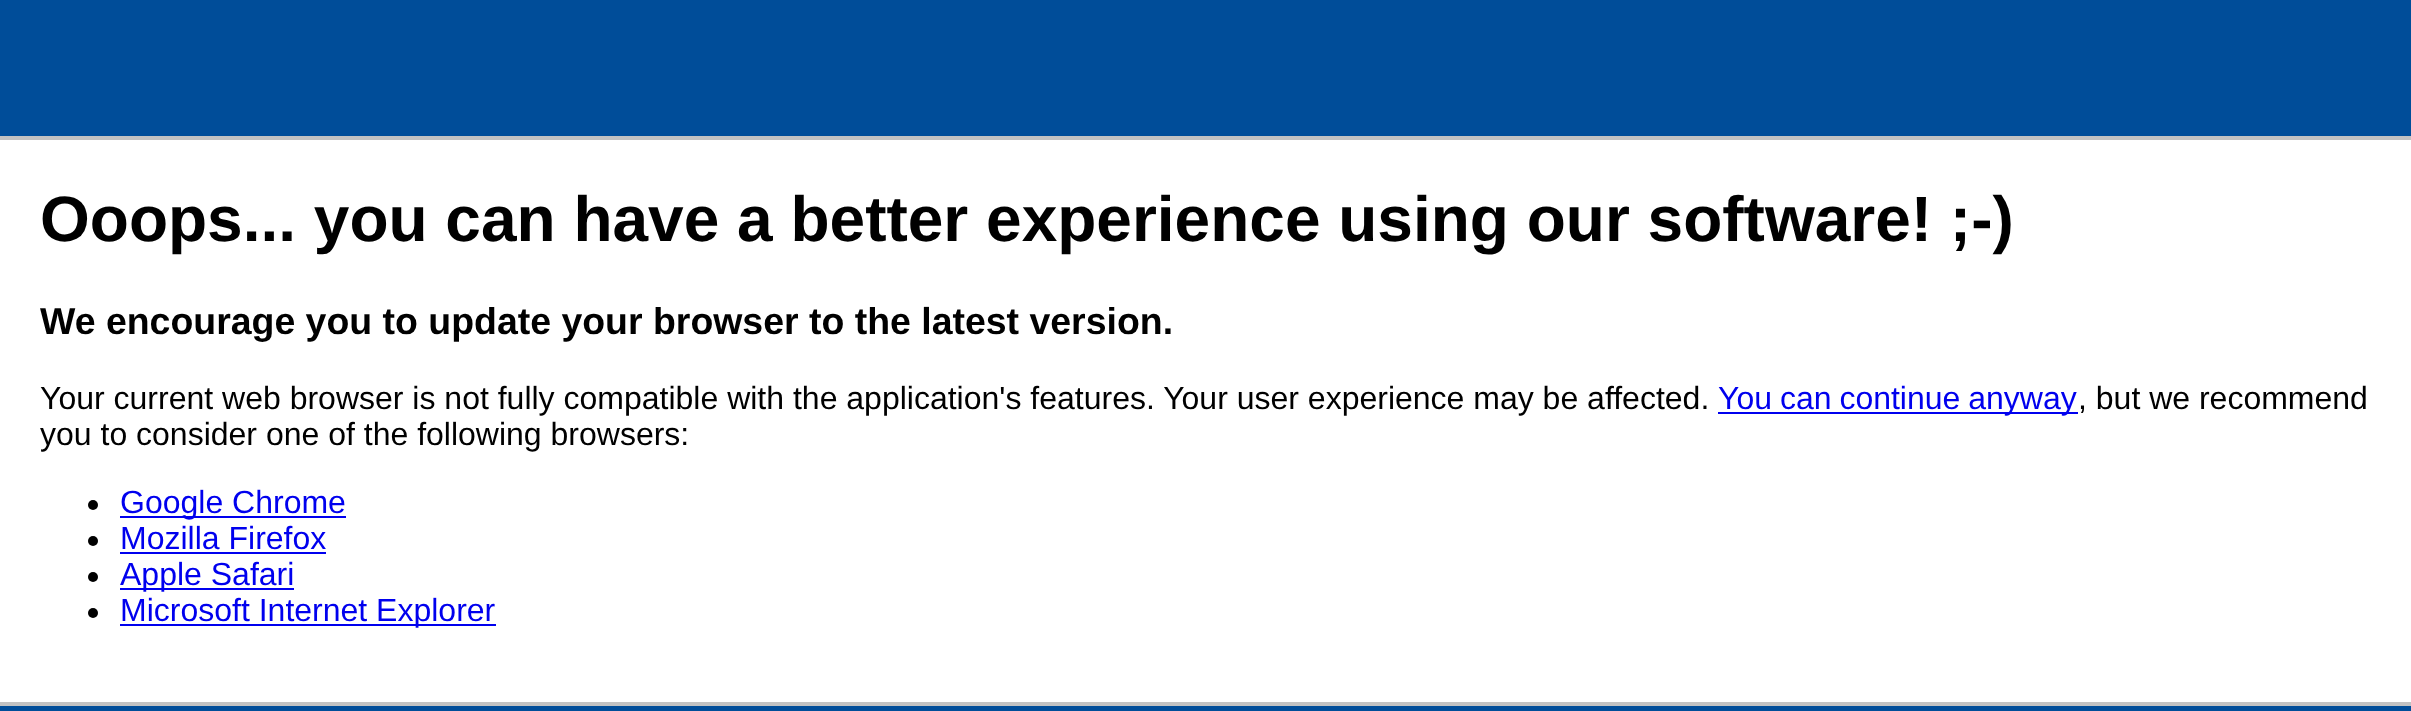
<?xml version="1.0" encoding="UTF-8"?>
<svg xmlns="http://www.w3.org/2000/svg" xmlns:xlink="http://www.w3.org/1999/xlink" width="2411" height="711">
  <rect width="100%" height="100%" fill="#004d99" />
  <rect y="140" width="2411" height="562" fill="#ffffff" />
  <rect y="136" width="2411" height="4" fill="#c2c2c2" />
  <rect y="702" width="2411" height="4" fill="#c2c2c2" />
  <rect x="1718" y="412" width="360" height="2" fill="#0000ee" />
  <circle cx="93" cy="505" r="5" fill="#000000" />
  <rect x="120" y="516" width="226" height="2" fill="#0000ee" />
  <circle cx="93" cy="541" r="5" fill="#000000" />
  <rect x="120" y="552" width="206" height="2" fill="#0000ee" />
  <circle cx="93" cy="577" r="5" fill="#000000" />
  <rect x="120" y="588" width="174" height="2" fill="#0000ee" />
  <circle cx="93" cy="613" r="5" fill="#000000" />
  <rect x="120" y="624" width="376" height="2" fill="#0000ee" />
  <text x="40" y="241" style="font-family: Liberation Sans; font-size: 64px; font-weight: bold; fill: #000000">Ooops... you can have a better experience using our software! ;-)</text>
  <text x="40" y="334" style="font-family: Liberation Sans; font-size: 37.45px; font-weight: bold; fill: #000000">We encourage you to update your browser to the latest version.</text>
  <text x="40" y="409" style="font-family: Liberation Sans; font-size: 32px; fill: #000000">Your current web browser is not fully compatible with the application's features. Your user experience may be affected.</text>
  <text x="1718" y="409" word-spacing="-1" style="font-family: Liberation Sans; font-size: 32px; fill: #0000ee">You can continue anyway</text>
  <text x="2078" y="409" style="font-family: Liberation Sans; font-size: 32px; fill: #000000">, but we recommend</text>
  <text x="40" y="445" style="font-family: Liberation Sans; font-size: 32px; fill: #000000">you to consider one of the following browsers:</text>
  <text x="120" y="513" style="font-family: Liberation Sans; font-size: 32px; fill: #0000ee">Google Chrome</text>
  <text x="120" y="549" style="font-family: Liberation Sans; font-size: 32px; fill: #0000ee">Mozilla Firefox</text>
  <text x="120" y="585" style="font-family: Liberation Sans; font-size: 32px; fill: #0000ee">Apple Safari</text>
  <text x="120" y="621" style="font-family: Liberation Sans; font-size: 32px; fill: #0000ee">Microsoft Internet Explorer</text>
</svg>
